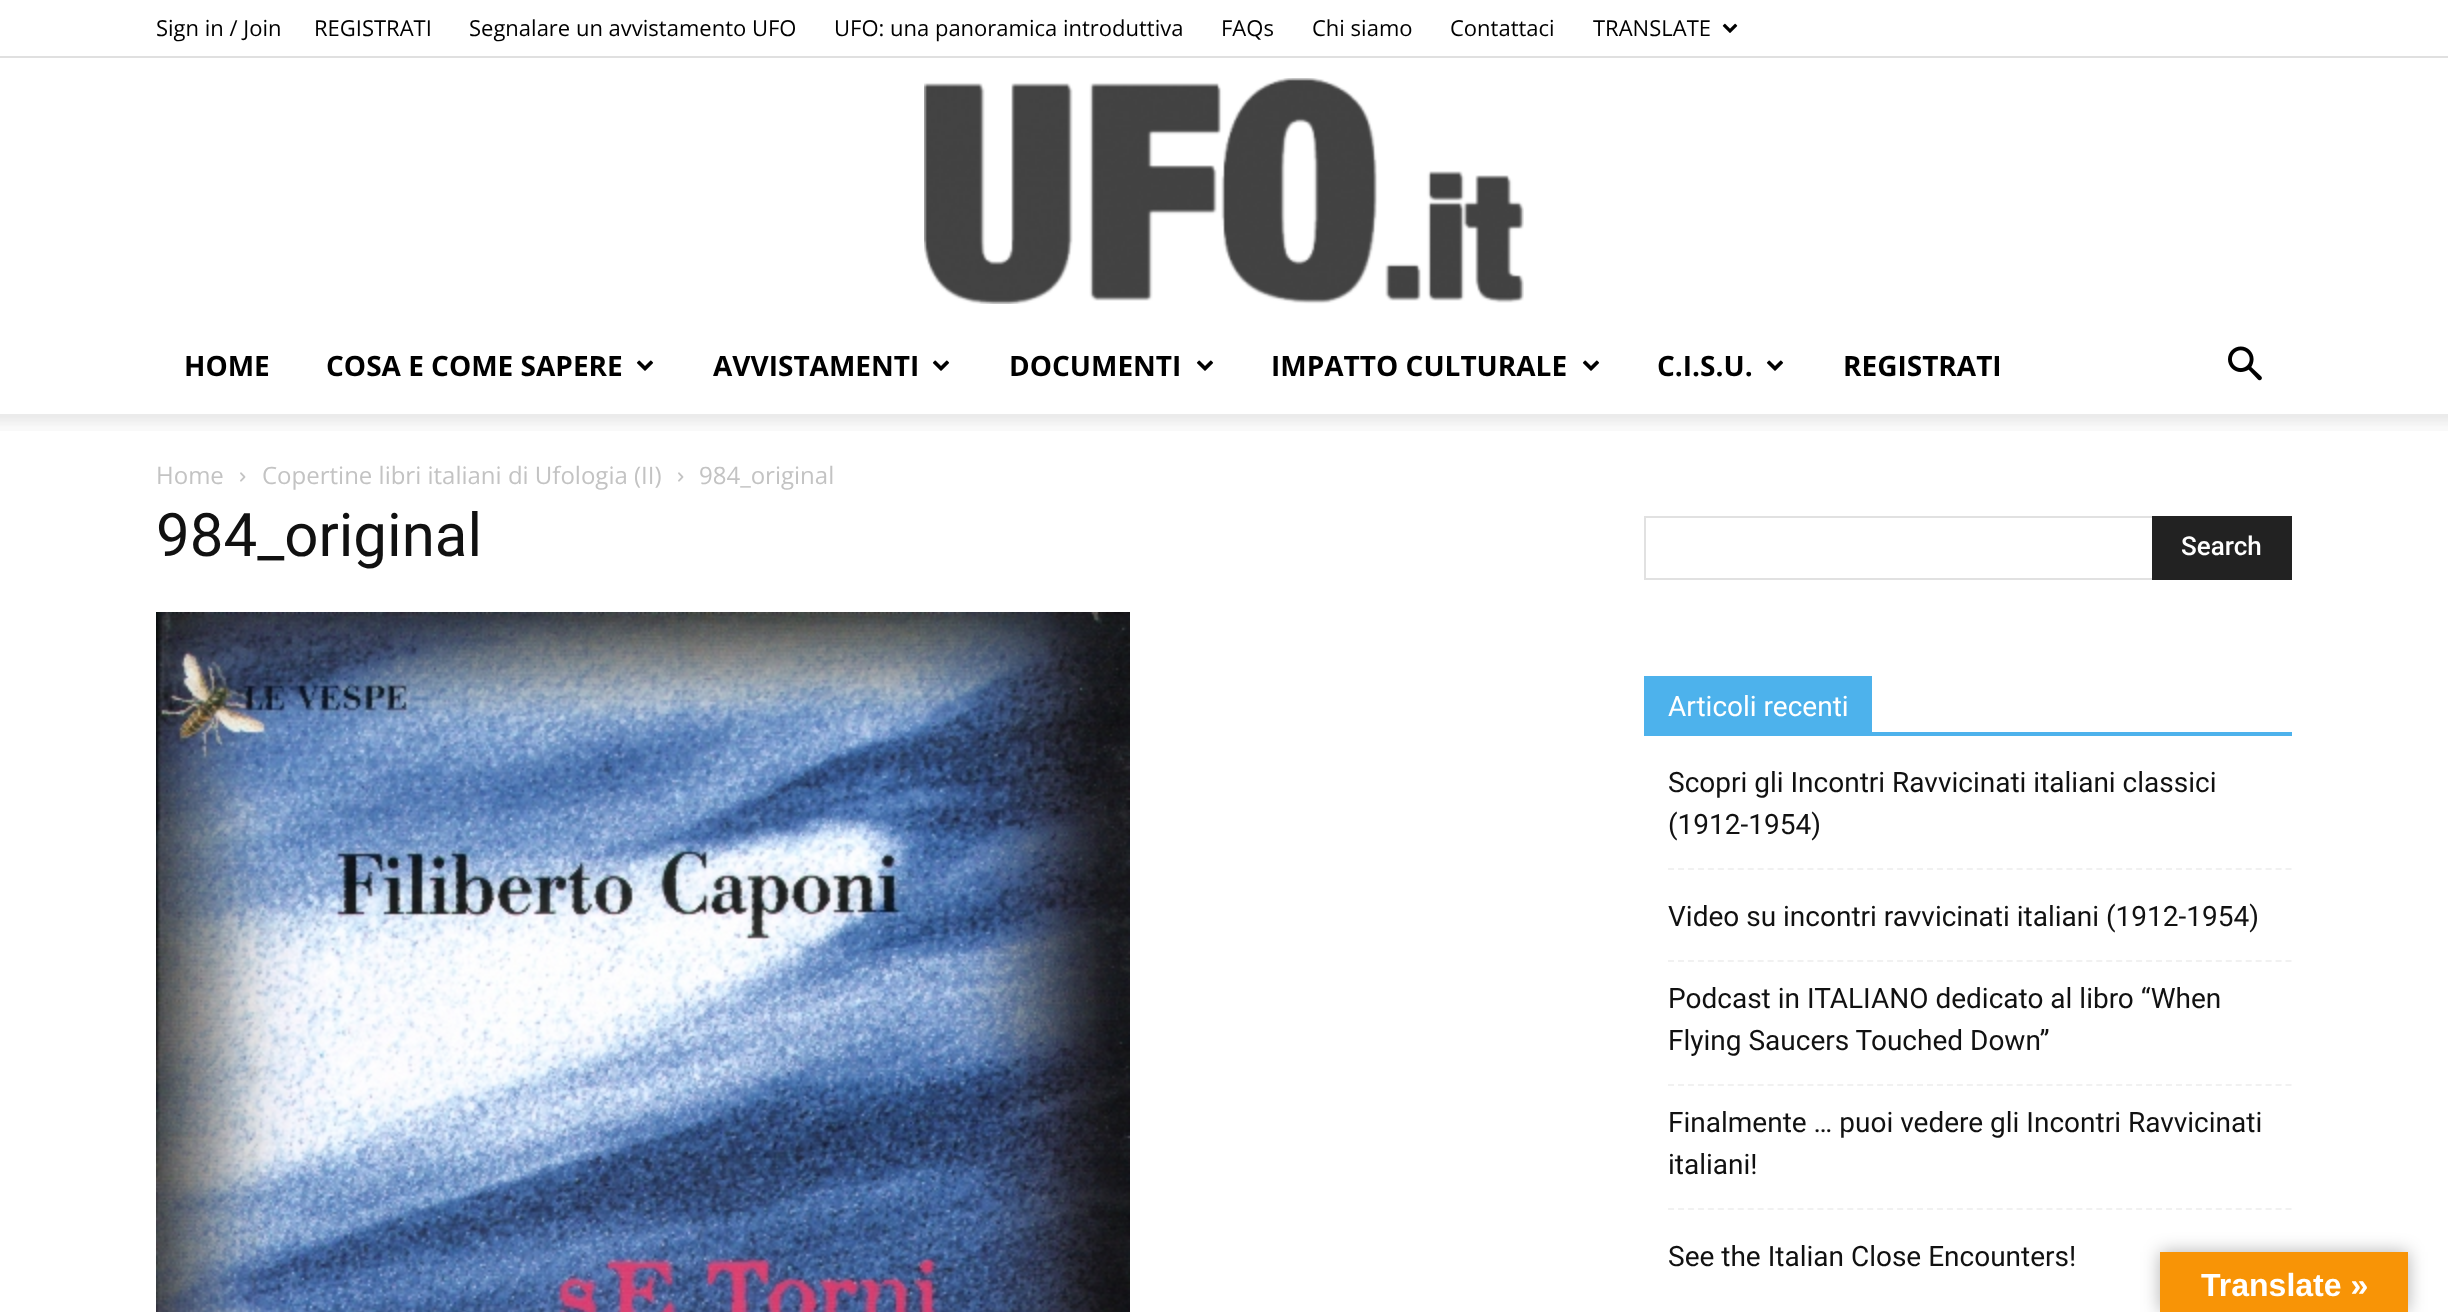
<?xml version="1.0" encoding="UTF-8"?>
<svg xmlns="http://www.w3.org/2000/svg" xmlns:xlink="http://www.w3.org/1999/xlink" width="2448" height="1312">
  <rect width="100%" height="100%" fill="#ffffff" />
  <rect y="56" width="2448" height="2" fill="#e0e0e0" />
  <image x="1722" y="23" width="16" height="10" xlink:href="image1.png" />
  <image x="924" y="78" width="600" height="226" xlink:href="image2.png" />
  <image x="636" y="360" width="18" height="11" xlink:href="image3.png" />
  <image x="932" y="360" width="18" height="11" xlink:href="image3.png" />
  <image x="1196" y="360" width="18" height="11" xlink:href="image3.png" />
  <image x="1582" y="360" width="18" height="11" xlink:href="image3.png" />
  <image x="1766" y="360" width="18" height="11" xlink:href="image3.png" />
  <image x="2228" y="346" width="34" height="35" xlink:href="image4.png" />
  <image x="0" y="414" width="2448" height="17" xlink:href="image5.png" />
  <image x="240" y="472" width="6" height="10" xlink:href="image6.png" />
  <image x="678" y="472" width="6" height="10" xlink:href="image6.png" />
  <image x="156" y="612" width="974" height="700" xlink:href="image7.png" />
  <rect x="1644" y="516" width="508" height="2" fill="#e1e1e1" />
  <rect x="1644" y="578" width="508" height="2" fill="#e1e1e1" />
  <rect x="1644" y="516" width="2" height="64" fill="#e1e1e1" />
  <rect x="2152" y="516" width="140" height="64" fill="#222222" />
  <rect x="1644" y="732" width="648" height="4" fill="#4db2ec" />
  <rect x="1644" y="676" width="228" height="56" fill="#4db2ec" />
  <path d="M 1668 869 h 624" fill="none" stroke="#f1f1f1" stroke-width="2" stroke-dasharray="6 3.96" />
  <path d="M 1668 961 h 624" fill="none" stroke="#f1f1f1" stroke-width="2" stroke-dasharray="6 3.96" />
  <path d="M 1668 1085 h 624" fill="none" stroke="#f1f1f1" stroke-width="2" stroke-dasharray="6 3.96" />
  <path d="M 1668 1209 h 624" fill="none" stroke="#f1f1f1" stroke-width="2" stroke-dasharray="6 3.96" />
  <rect x="2160" y="1252" width="248" height="60" fill="#000000" fill-opacity="0.3" filter="blur(9px)" />
  <rect x="2160" y="1252" width="248" height="60" fill="#f89406" />
  <text x="156" y="36" style="font-family: Open Sans; font-size: 22px; fill: #000000">Sign in / Join</text>
  <text x="314" y="36" style="font-family: Open Sans; font-size: 22px; fill: #000000">REGISTRATI</text>
  <text x="469" y="36" style="font-family: Open Sans; font-size: 22px; fill: #000000">Segnalare un avvistamento UFO</text>
  <text x="834" y="36" style="font-family: Open Sans; font-size: 22px; fill: #000000">UFO: una panoramica introduttiva</text>
  <text x="1221" y="36" style="font-family: Open Sans; font-size: 22px; fill: #000000">FAQs</text>
  <text x="1312" y="36" style="font-family: Open Sans; font-size: 22px; fill: #000000">Chi siamo</text>
  <text x="1450" y="36" style="font-family: Open Sans; font-size: 22px; fill: #000000">Contattaci</text>
  <text x="1593" y="36" style="font-family: Open Sans; font-size: 22px; fill: #000000">TRANSLATE</text>
  <text x="184" y="376" style="font-family: Open Sans; font-size: 28px; font-weight: bold; fill: #000000">HOME</text>
  <text x="326" y="376" style="font-family: Open Sans; font-size: 28px; font-weight: bold; fill: #000000">COSA E COME SAPERE</text>
  <text x="713" y="376" style="font-family: Open Sans; font-size: 28px; font-weight: bold; fill: #000000">AVVISTAMENTI</text>
  <text x="1009" y="376" style="font-family: Open Sans; font-size: 28px; font-weight: bold; fill: #000000">DOCUMENTI</text>
  <text x="1271" y="376" style="font-family: Open Sans; font-size: 28px; font-weight: bold; fill: #000000">IMPATTO CULTURALE</text>
  <text x="1657" y="376" style="font-family: Open Sans; font-size: 28px; font-weight: bold; fill: #000000">C.I.S.U.</text>
  <text x="1843" y="376" style="font-family: Open Sans; font-size: 28px; font-weight: bold; fill: #000000">REGISTRATI</text>
  <text x="156" y="484" style="font-family: Open Sans; font-size: 24px; fill: #c3c3c3">Home</text>
  <text x="262" y="484" style="font-family: Open Sans; font-size: 24px; fill: #c3c3c3">Copertine libri italiani di Ufologia (II)</text>
  <text x="699" y="484" style="font-family: Open Sans; font-size: 24px; fill: #c3c3c3">984_original</text>
  <text x="156" y="556" style="font-family: Roboto; font-size: 60px; fill: #111111">984_original</text>
  <text x="2181" y="555" style="font-family: Roboto; font-size: 26px; font-weight: 500; fill: #ffffff">Search</text>
  <text x="1668" y="716" style="font-family: Roboto; font-size: 28px; fill: #ffffff">Articoli recenti</text>
  <text x="1668" y="792" style="font-family: Roboto; font-size: 28px; fill: #111111">Scopri gli Incontri Ravvicinati italiani classici</text>
  <text x="1668" y="834" style="font-family: Roboto; font-size: 28px; fill: #111111">(1912-1954)</text>
  <text x="1668" y="926" style="font-family: Roboto; font-size: 28px; fill: #111111">Video su incontri ravvicinati italiani (1912-1954)</text>
  <text x="1668" y="1008" style="font-family: Roboto; font-size: 28px; fill: #111111">Podcast in ITALIANO dedicato al libro “When</text>
  <text x="1668" y="1050" style="font-family: Roboto; font-size: 28px; fill: #111111">Flying Saucers Touched Down”</text>
  <text x="1668" y="1132" style="font-family: Roboto; font-size: 28px; fill: #111111">Finalmente … puoi vedere gli Incontri Ravvicinati</text>
  <text x="1668" y="1174" style="font-family: Roboto; font-size: 28px; fill: #111111">italiani!</text>
  <text x="1668" y="1266" style="font-family: Roboto; font-size: 28px; fill: #111111">See the Italian Close Encounters!</text>
  <text x="2201" y="1296" style="font-family: Liberation Sans; font-size: 32px; font-weight: bold; fill: #ffffff">Translate »</text>
</svg>
